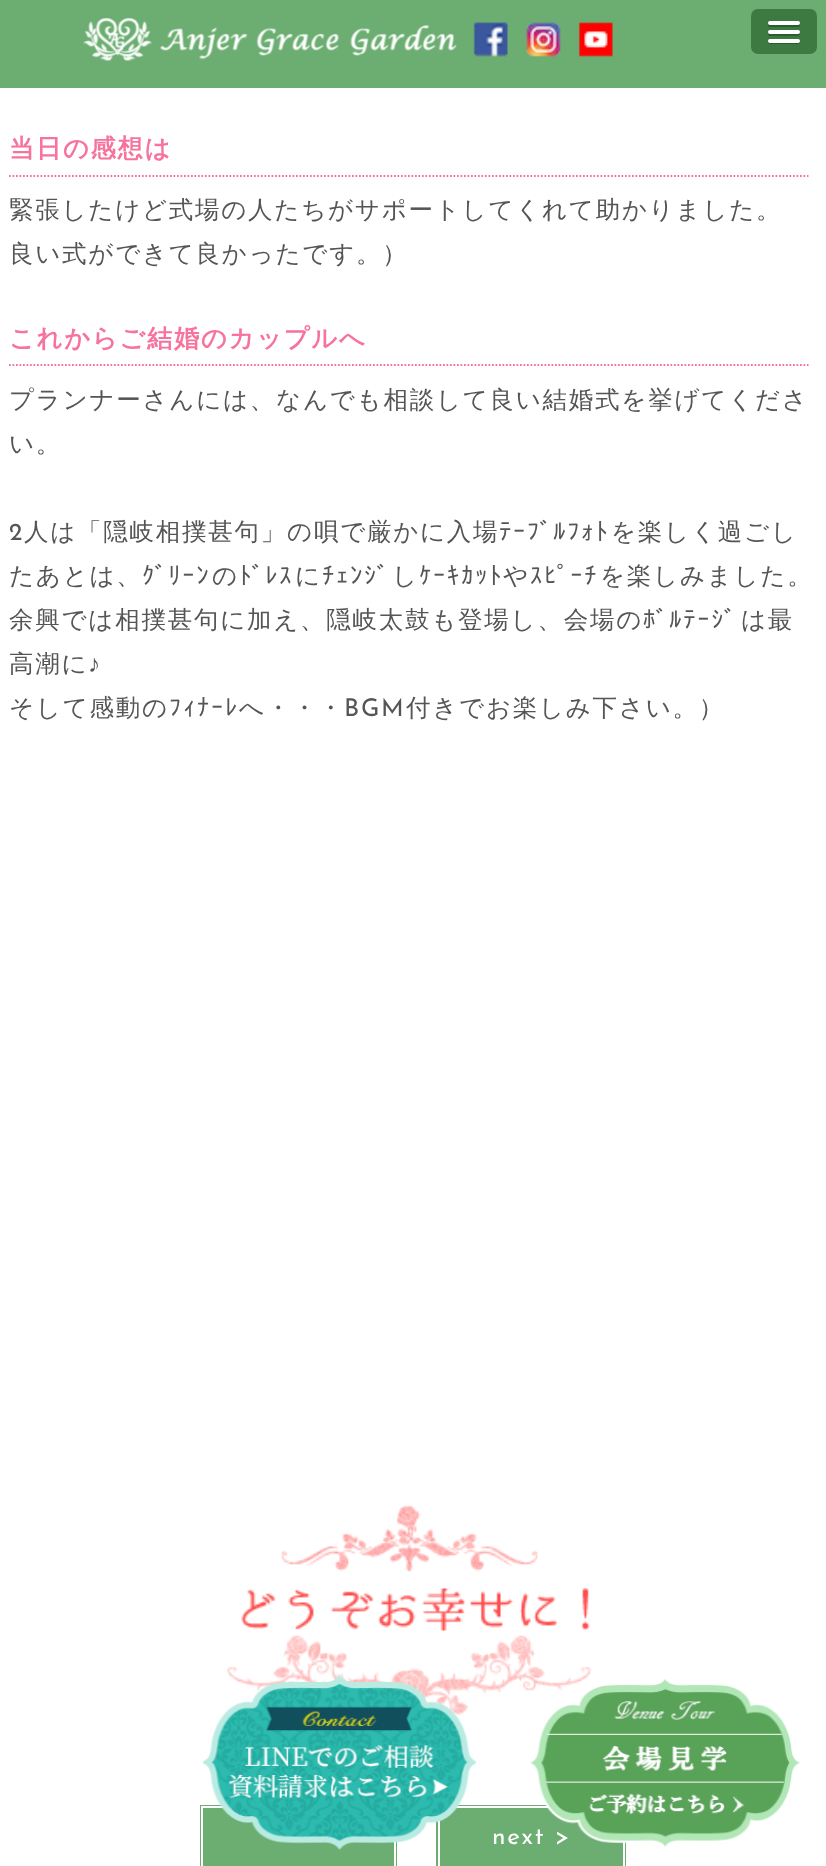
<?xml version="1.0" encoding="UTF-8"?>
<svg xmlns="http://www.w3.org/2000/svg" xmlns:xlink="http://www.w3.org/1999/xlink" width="826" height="1866">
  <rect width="100%" height="100%" fill="#ffffff" />
  <rect width="826" height="88" fill="#6cae72" />
  <rect x="751" y="9" width="66" height="45" rx="7" fill="#3d7a42" />
  <path d="M 768.5 23.5 c -1 1.5 -0.5 3 1 3.5 h 29 c 1.5 -0.5 2 -2 1 -3.5 l -1.5 1 h -28 z" fill="#2e5c32" />
  <rect x="768" y="21" width="32" height="4" rx="2" fill="#ffffff" />
  <path d="M 768.5 32.5 c -1 1.5 -0.5 3.5 1.5 3.5 c 3.5 0 28 0.5 29 -0.5 c 1 -0.5 1.5 -2 0.5 -3 l -1.5 0.5 h -28 z" fill="#2e5c32" />
  <rect x="768" y="30" width="32" height="4" rx="2" fill="#ffffff" />
  <path d="M 768.5 41 l -0.5 1.5 c 0.5 2.5 5.5 1.5 6.5 1.5 h 19 c 1 0 6 1 6.5 -1.5 l -0.5 -1.5 c 0 0.5 -0.5 1 -1.5 1 h -28 c -1 0 -1.5 -0.5 -1.5 -1 z" fill="#2e5c32" />
  <rect x="768" y="39" width="32" height="4" rx="2" fill="#ffffff" />
  <image x="83" y="18" width="374" height="44" xlink:href="image1.png" />
  <image x="473" y="22" width="35" height="35" xlink:href="image2.png" />
  <image x="526" y="22" width="35" height="35" xlink:href="image3.png" />
  <image x="578" y="22" width="35" height="35" xlink:href="image4.png" />
  <path d="M 9 176 h 799.5" fill="none" stroke="#f7739d" stroke-width="1.8" stroke-dasharray="1.75 1.75" />
  <path d="M 9 365 h 799.5" fill="none" stroke="#f7739d" stroke-width="1.8" stroke-dasharray="1.75 1.75" />
  <image x="227" y="1505" width="365" height="210" xlink:href="image5.png" />
  <rect x="200" y="1805" width="197" height="61" fill="#6cae72" />
  <rect x="202" y="1807" width="193" height="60" fill="none" stroke="#ffffff" stroke-width="2" />
  <rect x="436" y="1805" width="190" height="61" fill="#6cae72" />
  <rect x="439" y="1807" width="185" height="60" fill="none" stroke="#ffffff" stroke-width="2" />
  <image x="203" y="1674" width="273" height="176" xlink:href="image6.png" />
  <text x="9" y="157" style="font-family: WenQuanYi Zen Hei; font-size: 25.25px; font-weight: bold; letter-spacing: 1.75px; fill: #f7739d">当日の感想は</text>
  <text x="9" y="218" style="font-family: WenQuanYi Zen Hei; font-size: 24.5px; font-weight: 500; letter-spacing: 1.75px; fill: #555555">緊張したけど式場の人たちがサポートしてくれて助かりました。</text>
  <text x="9" y="262" style="font-family: WenQuanYi Zen Hei; font-size: 24.5px; font-weight: 500; letter-spacing: 1.75px; fill: #555555">良い式ができて良かったです。）</text>
  <text x="9" y="347" style="font-family: WenQuanYi Zen Hei; font-size: 25.25px; font-weight: bold; letter-spacing: 1.75px; fill: #f7739d">これからご結婚のカップルへ</text>
  <text x="9" y="408" style="font-family: WenQuanYi Zen Hei; font-size: 24.5px; font-weight: 500; letter-spacing: 1.75px; fill: #555555">プランナーさんには、なんでも相談して良い結婚式を挙げてくださ</text>
  <text x="9" y="452" style="font-family: WenQuanYi Zen Hei; font-size: 24.5px; font-weight: 500; letter-spacing: 1.75px; fill: #555555">い。</text>
  <text x="9" y="540" style="font-family: Josefin Sans; font-size: 24.5px; letter-spacing: 1.75px; fill: #555555">2</text>
  <text x="24" y="540" style="font-family: WenQuanYi Zen Hei; font-size: 24.5px; font-weight: 500; letter-spacing: 1.75px; fill: #555555">人は「隠岐相撲甚句」の唄で厳かに入場</text>
  <text x="499" y="540" style="font-family: IPAPGothic; font-size: 24.5px; letter-spacing: 1.75px; fill: #555555">ﾃｰﾌﾞﾙﾌｫﾄ</text>
  <text x="611" y="540" style="font-family: WenQuanYi Zen Hei; font-size: 24.5px; font-weight: 500; letter-spacing: 1.75px; fill: #555555">を楽しく過ごし</text>
  <text x="9" y="584" style="font-family: WenQuanYi Zen Hei; font-size: 24.5px; font-weight: 500; letter-spacing: 1.75px; fill: #555555">たあとは、</text>
  <text x="142" y="584" style="font-family: IPAPGothic; font-size: 24.5px; letter-spacing: 1.75px; fill: #555555">ｸﾞﾘｰﾝ</text>
  <text x="212" y="584" style="font-family: WenQuanYi Zen Hei; font-size: 24.5px; font-weight: 500; letter-spacing: 1.75px; fill: #555555">の</text>
  <text x="239" y="584" style="font-family: IPAPGothic; font-size: 24.5px; letter-spacing: 1.75px; fill: #555555">ﾄﾞﾚｽ</text>
  <text x="295" y="584" style="font-family: WenQuanYi Zen Hei; font-size: 24.5px; font-weight: 500; letter-spacing: 1.75px; fill: #555555">に</text>
  <text x="322" y="584" style="font-family: IPAPGothic; font-size: 24.5px; letter-spacing: 1.75px; fill: #555555">ﾁｪﾝｼﾞ</text>
  <text x="392" y="584" style="font-family: WenQuanYi Zen Hei; font-size: 24.5px; font-weight: 500; letter-spacing: 1.75px; fill: #555555">し</text>
  <text x="419" y="584" style="font-family: IPAPGothic; font-size: 24.5px; letter-spacing: 1.75px; fill: #555555">ｹｰｷｶｯﾄ</text>
  <text x="503" y="584" style="font-family: WenQuanYi Zen Hei; font-size: 24.5px; font-weight: 500; letter-spacing: 1.75px; fill: #555555">や</text>
  <text x="530" y="584" style="font-family: IPAPGothic; font-size: 24.5px; letter-spacing: 1.75px; fill: #555555">ｽﾋﾟｰﾁ</text>
  <text x="600" y="584" style="font-family: WenQuanYi Zen Hei; font-size: 24.5px; font-weight: 500; letter-spacing: 1.75px; fill: #555555">を楽しみました。</text>
  <text x="9" y="628" style="font-family: WenQuanYi Zen Hei; font-size: 24.5px; font-weight: 500; letter-spacing: 1.75px; fill: #555555">余興では相撲甚句に加え、隠岐太鼓も登場し、会場の</text>
  <text x="643" y="628" style="font-family: IPAPGothic; font-size: 24.5px; letter-spacing: 1.75px; fill: #555555">ﾎﾞﾙﾃｰｼﾞ</text>
  <text x="741" y="628" style="font-family: WenQuanYi Zen Hei; font-size: 24.5px; font-weight: 500; letter-spacing: 1.75px; fill: #555555">は最</text>
  <text x="9" y="672" style="font-family: WenQuanYi Zen Hei; font-size: 24.5px; font-weight: 500; letter-spacing: 1.75px; fill: #555555">高潮に</text>
  <text x="88" y="672" style="font-family: Liberation Sans; font-size: 24.5px; letter-spacing: 1.75px; fill: #555555">♪</text>
  <text x="9" y="716" style="font-family: WenQuanYi Zen Hei; font-size: 24.5px; font-weight: 500; letter-spacing: 1.75px; fill: #555555">そして感動の</text>
  <text x="169" y="716" style="font-family: IPAPGothic; font-size: 24.5px; letter-spacing: 1.75px; fill: #555555">ﾌｨﾅｰﾚ</text>
  <text x="239" y="716" style="font-family: WenQuanYi Zen Hei; font-size: 24.5px; font-weight: 500; letter-spacing: 1.75px; fill: #555555">へ・・・</text>
  <text x="344" y="716" style="font-family: Josefin Sans; font-size: 24.5px; letter-spacing: 1.75px; fill: #555555">BGM</text>
  <text x="406" y="716" style="font-family: WenQuanYi Zen Hei; font-size: 24.5px; font-weight: 500; letter-spacing: 1.75px; fill: #555555">付きでお楽しみ下さい。）</text>
  <text x="492" y="1844" style="font-family: Josefin Sans; font-size: 24.5px; letter-spacing: 1.75px; fill: #ffffff">next &gt;</text>
  <image x="530" y="1679" width="270" height="168" xlink:href="image7.png" />
</svg>
